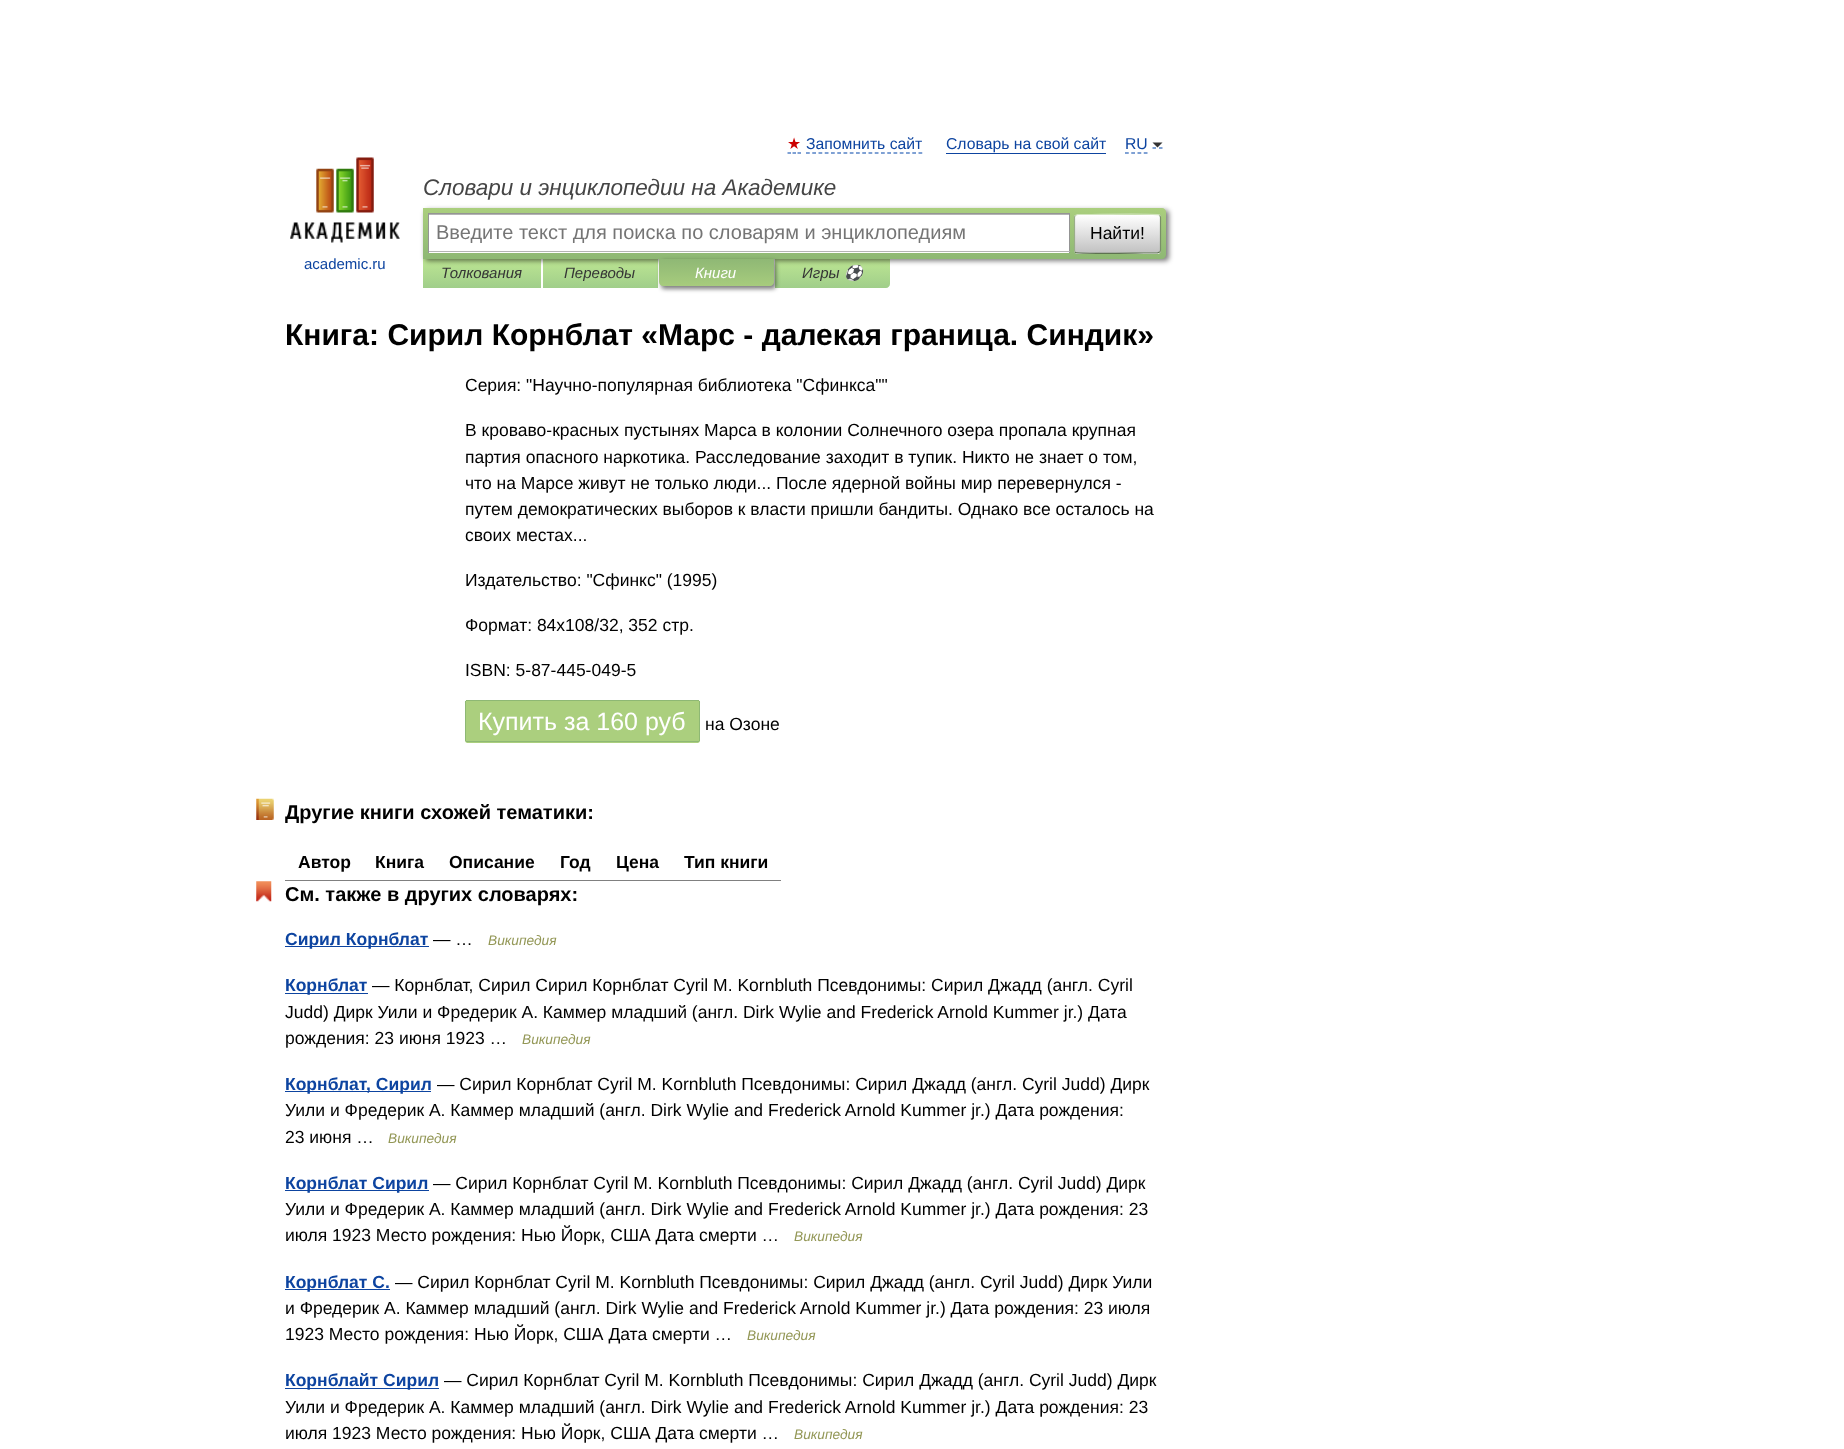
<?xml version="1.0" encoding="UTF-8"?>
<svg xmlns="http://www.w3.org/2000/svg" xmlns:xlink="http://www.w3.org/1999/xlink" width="1844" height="1449">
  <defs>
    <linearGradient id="g1" gradientUnits="userSpaceOnUse" x1="482" y1="259" x2="482" y2="288"><stop offset="0" stop-color="#bde693" /><stop offset="1" stop-color="#a0ce8a" /></linearGradient>
    <linearGradient id="g2" gradientUnits="userSpaceOnUse" x1="600" y1="259" x2="600" y2="288"><stop offset="0" stop-color="#bde693" /><stop offset="1" stop-color="#a0ce8a" /></linearGradient>
    <linearGradient id="g3" gradientUnits="userSpaceOnUse" x1="833" y1="259" x2="833" y2="288"><stop offset="0" stop-color="#bde693" /><stop offset="1" stop-color="#a0ce8a" /></linearGradient>
    <linearGradient id="g4" gradientUnits="userSpaceOnUse" x1="794" y1="207" x2="794" y2="259"><stop offset="0" stop-color="#abcf7e" /><stop offset="1" stop-color="#8eb874" /></linearGradient>
    <clipPath id="clip1"><rect x="1074" y="214" width="87" height="40" rx="4" /></clipPath>
    <linearGradient id="g5" gradientUnits="userSpaceOnUse" x1="1118" y1="215" x2="1118" y2="253"><stop offset="0" stop-color="#ffffff" /><stop offset="1" stop-color="#c1c1c1" /></linearGradient>
    <linearGradient id="g6" gradientUnits="userSpaceOnUse" x1="1118" y1="253" x2="1118" y2="290"><stop offset="0" stop-color="#ffffff" /><stop offset="1" stop-color="#c1c1c1" /></linearGradient>
    <linearGradient id="g7" gradientUnits="userSpaceOnUse" x1="716" y1="259" x2="716" y2="286"><stop offset="0" stop-color="#8fb875" /><stop offset="1" stop-color="#a7cc7d" /></linearGradient>
  </defs>
  <rect width="100%" height="100%" fill="#ffffff" />
  <path d="M 787.5 153 h 3.5 m 1.5 0 h 3.5 m 1.5 0 h 3.5" fill="none" stroke="#0044aa" stroke-width="1.2" />
  <path d="M 806 153 h 116.5" fill="none" stroke="#0044aa" stroke-width="1.2" stroke-dasharray="3.75 2.5" />
  <rect x="946" y="153" width="160" height="1" fill="#0d44a0" />
  <path d="M 1125 153 h 22.5" fill="none" stroke="#0044aa" stroke-width="1.2" stroke-dasharray="3.75 2.5" />
  <path d="M 1152.5 148 h 3.5 m 3 0 h 3.5" fill="none" stroke="#0044aa" stroke-width="1.2" />
  <path d="M 1152.5 142.5 h 10 l -5 5 z" fill="#333333" />
  <rect x="423" y="259" width="118" height="29" fill="url(#g1)" />
  <rect x="543" y="259" width="115" height="29" fill="url(#g2)" />
  <path d="M 775 259 h 115 v 25 c 0 2 -2 4 -4 4 h -111 z" fill="url(#g3)" />
  <rect x="425" y="210" width="744" height="51" rx="4" fill="#000000" fill-opacity="0.5" filter="blur(2.5px)" />
  <path d="M 423 208 h 739 c 2 0 4 2 4 4 v 43 c 0 2 -2 4 -4 4 h -739 z" fill="url(#g4)" />
  <rect x="429" y="215" width="640" height="38" fill="#ffffff" />
  <rect x="429" y="214" width="640" height="1" fill="#b3b3b3" />
  <rect x="428" y="213" width="642" height="1" fill="#949494" />
  <rect x="1069" y="213" width="1" height="40" fill="#949494" />
  <rect x="428" y="251" width="642" height="1" fill="#b4b4b4" />
  <rect x="428" y="213" width="1" height="40" fill="#949494" />
  <g clip-path="url(#clip1)">
    <rect x="1074" y="215" width="87" height="38" fill="url(#g5)" />
    <rect x="1074" y="253" width="87" height="1" fill="url(#g6)" />
  </g>
  <path d="M 1075.5 215.5 l 2 -1 h 13.5 c 7.5 0 66.5 -1 68.5 0.5 v 0.5" fill="none" stroke="#d1e4bc" stroke-width="1.2" />
  <path d="M 1159.5 215.5 c 1 0.5 1 1 1 2 v 32.5 c 0 1 0 1.5 -1 2" fill="none" stroke="#7a8e69" stroke-width="1.2" />
  <path d="M 1159.5 252 l -2 1 h -13.5 c -7.5 0 -66.5 1 -68.5 -0.5 v -0.5" fill="none" stroke="#5d7250" stroke-width="1.2" />
  <path d="M 1075.5 252 c -1 -0.5 -1 -1 -1 -2 v -32.5 c 0 -1 0 -1.5 1 -2" fill="none" stroke="#9aae89" stroke-width="1.2" />
  <image x="290" y="157" width="110" height="86" xlink:href="image1.png" />
  <rect x="661" y="261" width="115" height="28" rx="4" fill="#000000" fill-opacity="0.5" filter="blur(2px)" />
  <path d="M 659 259 h 115 v 23 c 0 2 -2 4 -4 4 h -107 c -2 0 -4 -2 -4 -4 z" fill="url(#g7)" />
  <path d="M 467.5 700 h 128.5 v 43 h -128.5 c -1.5 0 -2.5 -1 -2.5 -2.5 v -38 c 0 -1.5 1 -2.5 2.5 -2.5 z" fill="#abcf7e" />
  <rect x="466" y="700" width="173" height="1" fill="#8eb874" />
  <rect x="466" y="741" width="130" height="1" fill="#8eb874" />
  <rect x="465" y="701" width="1" height="40" fill="#8eb874" />
  <rect x="596" y="701" width="43" height="42" fill="#abcf7e" />
  <rect x="596" y="741" width="43" height="1" fill="#8eb874" />
  <rect x="639" y="700" width="6" height="43" fill="#abcf7e" />
  <rect x="639" y="700" width="6" height="1" fill="#8eb874" />
  <rect x="639" y="741" width="6" height="1" fill="#8eb874" />
  <path d="M 645 700 h 52.5 c 1.5 0 2.5 1 2.5 2.5 v 38 c 0 1.5 -1 2.5 -2.5 2.5 h -52.5 z" fill="#abcf7e" />
  <rect x="645" y="700" width="54" height="1" fill="#8eb874" />
  <rect x="699" y="701" width="1" height="40" fill="#8eb874" />
  <rect x="645" y="741" width="54" height="1" fill="#8eb874" />
  <image x="256" y="798" width="18" height="22" xlink:href="image2.png" />
  <rect x="285" y="880" width="496" height="1" fill="#808080" />
  <image x="256" y="881" width="16" height="21" xlink:href="image3.png" />
  <rect x="285" y="946" width="144" height="1" fill="#0d44a0" />
  <rect x="285" y="993" width="83" height="1" fill="#0d44a0" />
  <rect x="285" y="1091" width="146" height="1" fill="#0d44a0" />
  <rect x="285" y="1190" width="144" height="1" fill="#0d44a0" />
  <rect x="285" y="1289" width="105" height="1" fill="#0d44a0" />
  <rect x="285" y="1388" width="154" height="1" fill="#0d44a0" />
  <text x="787" y="149" style="font-family: DejaVu Sans; font-size: 15.75px; fill: #cc0000">★</text>
  <text x="806" y="149" style="font-family: Liberation Sans; font-size: 15.75px; fill: #0d44a0">Запомнить сайт</text>
  <text x="946" y="149" style="font-family: Liberation Sans; font-size: 15.75px; fill: #0d44a0">Словарь на свой сайт</text>
  <text x="1125" y="149" style="font-family: Liberation Sans; font-size: 15.75px; fill: #0d44a0">RU</text>
  <text x="423" y="195" style="font-family: Liberation Sans; font-size: 22.5px; font-style: italic; fill: #454545">Словари и энциклопедии на Академике</text>
  <text x="436" y="239" style="font-family: Liberation Sans; font-size: 20px; fill: #757575">Введите текст для поиска по словарям и энциклопедиям</text>
  <text x="1090" y="239" style="font-family: Liberation Sans; font-size: 17.5px; fill: #000000">Найти!</text>
  <text x="304" y="269" style="font-family: Liberation Sans; font-size: 15px; fill: #0d44a0">academic.ru</text>
  <text x="441" y="278" style="font-family: Liberation Sans; font-size: 15px; font-style: italic; fill: #353535">Толкования</text>
  <text x="564" y="278" style="font-family: Liberation Sans; font-size: 15px; font-style: italic; fill: #353535">Переводы</text>
  <text x="695" y="278" style="font-family: Liberation Sans; font-size: 15px; font-style: italic; fill: #ffffff">Книги</text>
  <text x="802" y="278" style="font-family: Liberation Sans; font-size: 15px; font-style: italic; fill: #353535">Игры</text>
  <text x="844" y="278" style="font-family: Noto Color Emoji; font-size: 15px; font-style: italic; fill: #353535">⚽</text>
  <text x="285" y="345" style="font-family: Liberation Sans; font-size: 30px; font-weight: bold; fill: #000000">Книга: Сирил Корнблат «Марс - далекая граница. Синдик»</text>
  <text x="465" y="391" style="font-family: Liberation Sans; font-size: 17.5px; fill: #000000">Серия: "Научно-популярная библиотека "Сфинкса""</text>
  <text x="465" y="436" style="font-family: Liberation Sans; font-size: 17.5px; fill: #000000">В кроваво-красных пустынях Марса в колонии Солнечного озера пропала крупная</text>
  <text x="465" y="463" style="font-family: Liberation Sans; font-size: 17.5px; fill: #000000">партия опасного наркотика. Расследование заходит в тупик. Никто не знает о том,</text>
  <text x="465" y="489" style="font-family: Liberation Sans; font-size: 17.5px; fill: #000000">что на Марсе живут не только люди... После ядерной войны мир перевернулся -</text>
  <text x="465" y="515" style="font-family: Liberation Sans; font-size: 17.5px; fill: #000000">путем демократических выборов к власти пришли бандиты. Однако все осталось на</text>
  <text x="465" y="541" style="font-family: Liberation Sans; font-size: 17.5px; fill: #000000">своих местах...</text>
  <text x="465" y="586" style="font-family: Liberation Sans; font-size: 17.5px; fill: #000000">Издательство: "Сфинкс" (1995)</text>
  <text x="465" y="631" style="font-family: Liberation Sans; font-size: 17.5px; fill: #000000">Формат: 84x108/32, 352 стр.</text>
  <text x="465" y="676" style="font-family: Liberation Sans; font-size: 17.5px; fill: #000000">ISBN: 5-87-445-049-5</text>
  <text x="478" y="730" style="font-family: Liberation Sans; font-size: 25px; fill: #ffffff">Купить за 160 руб</text>
  <text x="705" y="730" style="font-family: Liberation Sans; font-size: 17.5px; fill: #000000">на Озоне</text>
  <text x="285" y="819" style="font-family: Liberation Sans; font-size: 20px; font-weight: bold; fill: #000000">Другие книги схожей тематики:</text>
  <text x="298" y="868" style="font-family: Liberation Sans; font-size: 17.5px; font-weight: bold; fill: #000000">Автор</text>
  <text x="375" y="868" style="font-family: Liberation Sans; font-size: 17.5px; font-weight: bold; fill: #000000">Книга</text>
  <text x="449" y="868" style="font-family: Liberation Sans; font-size: 17.5px; font-weight: bold; fill: #000000">Описание</text>
  <text x="560" y="868" style="font-family: Liberation Sans; font-size: 17.5px; font-weight: bold; fill: #000000">Год</text>
  <text x="616" y="868" style="font-family: Liberation Sans; font-size: 17.5px; font-weight: bold; fill: #000000">Цена</text>
  <text x="684" y="868" style="font-family: Liberation Sans; font-size: 17.5px; font-weight: bold; fill: #000000">Тип книги</text>
  <text x="285" y="901" style="font-family: Liberation Sans; font-size: 20px; font-weight: bold; fill: #000000">См. также в других словарях:</text>
  <text x="285" y="945" style="font-family: Liberation Sans; font-size: 17.5px; font-weight: bold; fill: #0d44a0">Сирил Корнблат</text>
  <text x="433" y="945" style="font-family: Liberation Sans; font-size: 17.5px; fill: #000000">— …</text>
  <text x="488" y="945" style="font-family: Liberation Sans; font-size: 13.75px; font-style: italic; fill: #939756">Википедия</text>
  <text x="285" y="991" style="font-family: Liberation Sans; font-size: 17.5px; font-weight: bold; fill: #0d44a0">Корнблат</text>
  <text x="372" y="991" style="font-family: Liberation Sans; font-size: 17.5px; fill: #000000">— Корнблат, Сирил Сирил Корнблат Cyril M. Kornbluth Псевдонимы: Сирил Джадд (англ. Cyril</text>
  <text x="285" y="1018" style="font-family: Liberation Sans; font-size: 17.5px; fill: #000000">Judd) Дирк Уили и Фредерик А. Каммер младший (англ. Dirk Wylie and Frederick Arnold Kummer jr.) Дата</text>
  <text x="285" y="1044" style="font-family: Liberation Sans; font-size: 17.5px; fill: #000000">рождения: 23 июня 1923 …</text>
  <text x="522" y="1044" style="font-family: Liberation Sans; font-size: 13.75px; font-style: italic; fill: #939756">Википедия</text>
  <text x="285" y="1090" style="font-family: Liberation Sans; font-size: 17.5px; font-weight: bold; fill: #0d44a0">Корнблат, Сирил</text>
  <text x="437" y="1090" style="font-family: Liberation Sans; font-size: 17.5px; fill: #000000">— Сирил Корнблат Cyril M. Kornbluth Псевдонимы: Сирил Джадд (англ. Cyril Judd) Дирк</text>
  <text x="285" y="1116" style="font-family: Liberation Sans; font-size: 17.5px; fill: #000000">Уили и Фредерик А. Каммер младший (англ. Dirk Wylie and Frederick Arnold Kummer jr.) Дата рождения:</text>
  <text x="285" y="1143" style="font-family: Liberation Sans; font-size: 17.5px; fill: #000000">23 июня …</text>
  <text x="388" y="1143" style="font-family: Liberation Sans; font-size: 13.75px; font-style: italic; fill: #939756">Википедия</text>
  <text x="285" y="1189" style="font-family: Liberation Sans; font-size: 17.5px; font-weight: bold; fill: #0d44a0">Корнблат Сирил</text>
  <text x="433" y="1189" style="font-family: Liberation Sans; font-size: 17.5px; fill: #000000">— Сирил Корнблат Cyril M. Kornbluth Псевдонимы: Сирил Джадд (англ. Cyril Judd) Дирк</text>
  <text x="285" y="1215" style="font-family: Liberation Sans; font-size: 17.5px; fill: #000000">Уили и Фредерик А. Каммер младший (англ. Dirk Wylie and Frederick Arnold Kummer jr.) Дата рождения: 23</text>
  <text x="285" y="1241" style="font-family: Liberation Sans; font-size: 17.5px; fill: #000000">июля 1923 Место рождения: Нью Йорк, США Дата смерти …</text>
  <text x="794" y="1241" style="font-family: Liberation Sans; font-size: 13.75px; font-style: italic; fill: #939756">Википедия</text>
  <text x="285" y="1288" style="font-family: Liberation Sans; font-size: 17.5px; font-weight: bold; fill: #0d44a0">Корнблат С.</text>
  <text x="395" y="1288" style="font-family: Liberation Sans; font-size: 17.5px; fill: #000000">— Сирил Корнблат Cyril M. Kornbluth Псевдонимы: Сирил Джадд (англ. Cyril Judd) Дирк Уили</text>
  <text x="285" y="1314" style="font-family: Liberation Sans; font-size: 17.5px; fill: #000000">и Фредерик А. Каммер младший (англ. Dirk Wylie and Frederick Arnold Kummer jr.) Дата рождения: 23 июля</text>
  <text x="285" y="1340" style="font-family: Liberation Sans; font-size: 17.5px; fill: #000000">1923 Место рождения: Нью Йорк, США Дата смерти …</text>
  <text x="747" y="1340" style="font-family: Liberation Sans; font-size: 13.75px; font-style: italic; fill: #939756">Википедия</text>
  <text x="285" y="1386" style="font-family: Liberation Sans; font-size: 17.5px; font-weight: bold; fill: #0d44a0">Корнблайт Сирил</text>
  <text x="444" y="1386" style="font-family: Liberation Sans; font-size: 17.5px; fill: #000000">— Сирил Корнблат Cyril M. Kornbluth Псевдонимы: Сирил Джадд (англ. Cyril Judd) Дирк</text>
  <text x="285" y="1413" style="font-family: Liberation Sans; font-size: 17.5px; fill: #000000">Уили и Фредерик А. Каммер младший (англ. Dirk Wylie and Frederick Arnold Kummer jr.) Дата рождения: 23</text>
  <text x="285" y="1439" style="font-family: Liberation Sans; font-size: 17.5px; fill: #000000">июля 1923 Место рождения: Нью Йорк, США Дата смерти …</text>
  <text x="794" y="1439" style="font-family: Liberation Sans; font-size: 13.75px; font-style: italic; fill: #939756">Википедия</text>
</svg>
